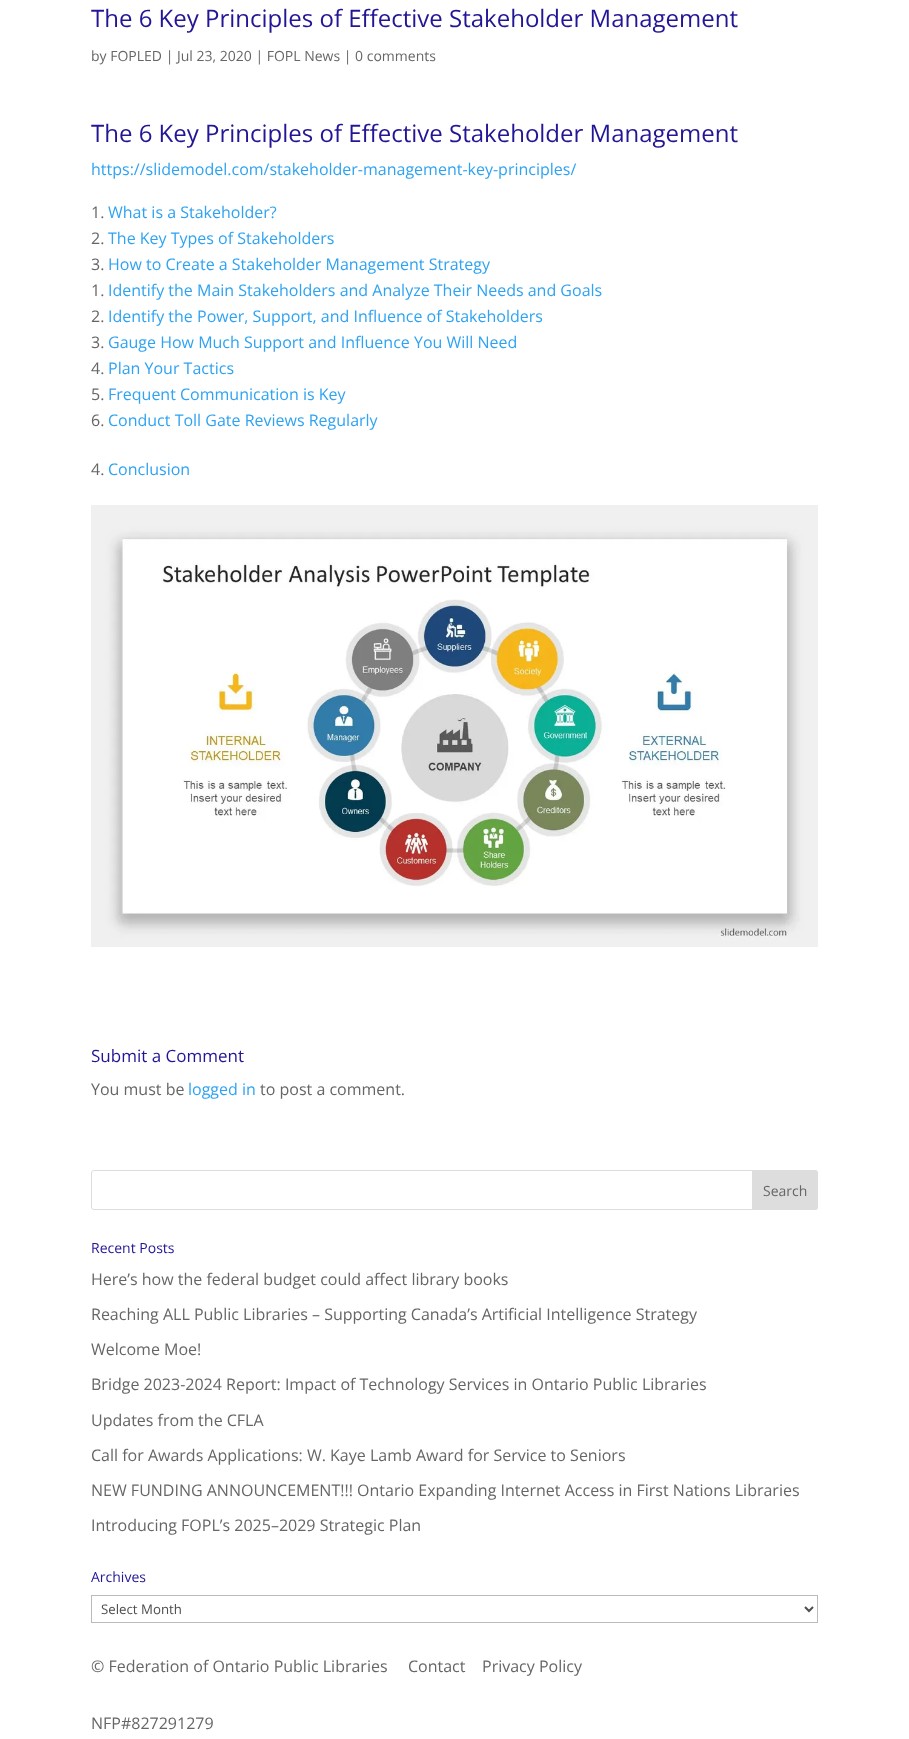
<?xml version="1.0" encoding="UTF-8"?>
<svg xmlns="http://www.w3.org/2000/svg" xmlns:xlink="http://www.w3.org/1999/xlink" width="909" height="1739">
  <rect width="100%" height="100%" fill="#ffffff" />
  <image x="91" y="505" width="727" height="442" xlink:href="image1.png" />
  <rect x="91.5" y="1170.5" width="726" height="39" rx="2.5" fill="none" stroke="#dddddd" />
  <path d="M 752.5 1170.5 h 62.5 c 1.5 0 2.5 1 2.5 2.5 v 34 c 0 1.5 -1 2.5 -2.5 2.5 h -62.5 z" fill="#dddddd" stroke="#dddddd" />
  <rect x="91.5" y="1595.5" width="726" height="27" fill="none" stroke="#bbbbbb" />
  <path d="M 805 1607 l 4 4 l 4 -4" fill="none" stroke="#4e4e4e" stroke-width="2" />
  <text x="91" y="27" style="font-family: Open Sans; font-size: 24px; fill: #221596">The 6 Key Principles of Effective Stakeholder Management</text>
  <text x="91" y="61" style="font-family: Open Sans; font-size: 14px; fill: #666666">by FOPLED | Jul 23, 2020 | FOPL News | 0 comments</text>
  <text x="91" y="142" style="font-family: Open Sans; font-size: 24px; fill: #221596">The 6 Key Principles of Effective Stakeholder Management</text>
  <text x="91" y="175" style="font-family: Open Sans; font-size: 16px; fill: #2ea3f2">https://slidemodel.com/stakeholder-management-key-principles/</text>
  <text x="91" y="218" style="font-family: Open Sans; font-size: 16px; fill: #666666">1.</text>
  <text x="108" y="218" style="font-family: Open Sans; font-size: 16px; fill: #2ea3f2">What is a Stakeholder?</text>
  <text x="91" y="244" style="font-family: Open Sans; font-size: 16px; fill: #666666">2.</text>
  <text x="108" y="244" style="font-family: Open Sans; font-size: 16px; fill: #2ea3f2">The Key Types of Stakeholders</text>
  <text x="91" y="270" style="font-family: Open Sans; font-size: 16px; fill: #666666">3.</text>
  <text x="108" y="270" style="font-family: Open Sans; font-size: 16px; fill: #2ea3f2">How to Create a Stakeholder Management Strategy</text>
  <text x="91" y="296" style="font-family: Open Sans; font-size: 16px; fill: #666666">1.</text>
  <text x="108" y="296" style="font-family: Open Sans; font-size: 16px; fill: #2ea3f2">Identify the Main Stakeholders and Analyze Their Needs and Goals</text>
  <text x="91" y="322" style="font-family: Open Sans; font-size: 16px; fill: #666666">2.</text>
  <text x="108" y="322" style="font-family: Open Sans; font-size: 16px; fill: #2ea3f2">Identify the Power, Support, and Influence of Stakeholders</text>
  <text x="91" y="348" style="font-family: Open Sans; font-size: 16px; fill: #666666">3.</text>
  <text x="108" y="348" style="font-family: Open Sans; font-size: 16px; fill: #2ea3f2">Gauge How Much Support and Influence You Will Need</text>
  <text x="91" y="374" style="font-family: Open Sans; font-size: 16px; fill: #666666">4.</text>
  <text x="108" y="374" style="font-family: Open Sans; font-size: 16px; fill: #2ea3f2">Plan Your Tactics</text>
  <text x="91" y="400" style="font-family: Open Sans; font-size: 16px; fill: #666666">5.</text>
  <text x="108" y="400" style="font-family: Open Sans; font-size: 16px; fill: #2ea3f2">Frequent Communication is Key</text>
  <text x="91" y="426" style="font-family: Open Sans; font-size: 16px; fill: #666666">6.</text>
  <text x="108" y="426" style="font-family: Open Sans; font-size: 16px; fill: #2ea3f2">Conduct Toll Gate Reviews Regularly</text>
  <text x="91" y="475" style="font-family: Open Sans; font-size: 16px; fill: #666666">4.</text>
  <text x="108" y="475" style="font-family: Open Sans; font-size: 16px; fill: #2ea3f2">Conclusion</text>
  <text x="91" y="1062" style="font-family: Open Sans; font-size: 17px; fill: #221596">Submit a Comment</text>
  <text x="91" y="1095" style="font-family: Open Sans; font-size: 16px; fill: #666666">You must be</text>
  <text x="188" y="1095" style="font-family: Open Sans; font-size: 16px; fill: #2ea3f2">logged in</text>
  <text x="260" y="1095" style="font-family: Open Sans; font-size: 16px; fill: #666666">to post a comment.</text>
  <text x="763" y="1196" style="font-family: Open Sans; font-size: 14px; fill: #666666">Search</text>
  <text x="91" y="1253" style="font-family: Open Sans; font-size: 14px; fill: #221596">Recent Posts</text>
  <text x="91" y="1285" style="font-family: Open Sans; font-size: 16px; fill: #666666">Here’s how the federal budget could affect library books</text>
  <text x="91" y="1320" style="font-family: Open Sans; font-size: 16px; fill: #666666">Reaching ALL Public Libraries – Supporting Canada’s Artificial Intelligence Strategy</text>
  <text x="91" y="1355" style="font-family: Open Sans; font-size: 16px; fill: #666666">Welcome Moe!</text>
  <text x="91" y="1390" style="font-family: Open Sans; font-size: 16px; fill: #666666">Bridge 2023-2024 Report: Impact of Technology Services in Ontario Public Libraries</text>
  <text x="91" y="1426" style="font-family: Open Sans; font-size: 16px; fill: #666666">Updates from the CFLA</text>
  <text x="91" y="1461" style="font-family: Open Sans; font-size: 16px; fill: #666666">Call for Awards Applications: W. Kaye Lamb Award for Service to Seniors</text>
  <text x="91" y="1496" style="font-family: Open Sans; font-size: 16px; fill: #666666">NEW FUNDING ANNOUNCEMENT!!! Ontario Expanding Internet Access in First Nations Libraries</text>
  <text x="91" y="1531" style="font-family: Open Sans; font-size: 16px; fill: #666666">Introducing FOPL’s 2025–2029 Strategic Plan</text>
  <text x="91" y="1582" style="font-family: Open Sans; font-size: 14px; fill: #221596">Archives</text>
  <text x="101" y="1614" style="font-family: Open Sans; font-size: 13.25px; fill: #4e4e4e">Select Month</text>
  <text x="91" y="1672" style="font-family: Open Sans; font-size: 16px; fill: #666666">© Federation of Ontario Public Libraries</text>
  <text x="408" y="1672" style="font-family: Open Sans; font-size: 16px; fill: #666666">Contact</text>
  <text x="482" y="1672" style="font-family: Open Sans; font-size: 16px; fill: #666666">Privacy Policy</text>
  <text x="91" y="1729" style="font-family: Open Sans; font-size: 16px; fill: #666666">NFP#827291279</text>
</svg>
